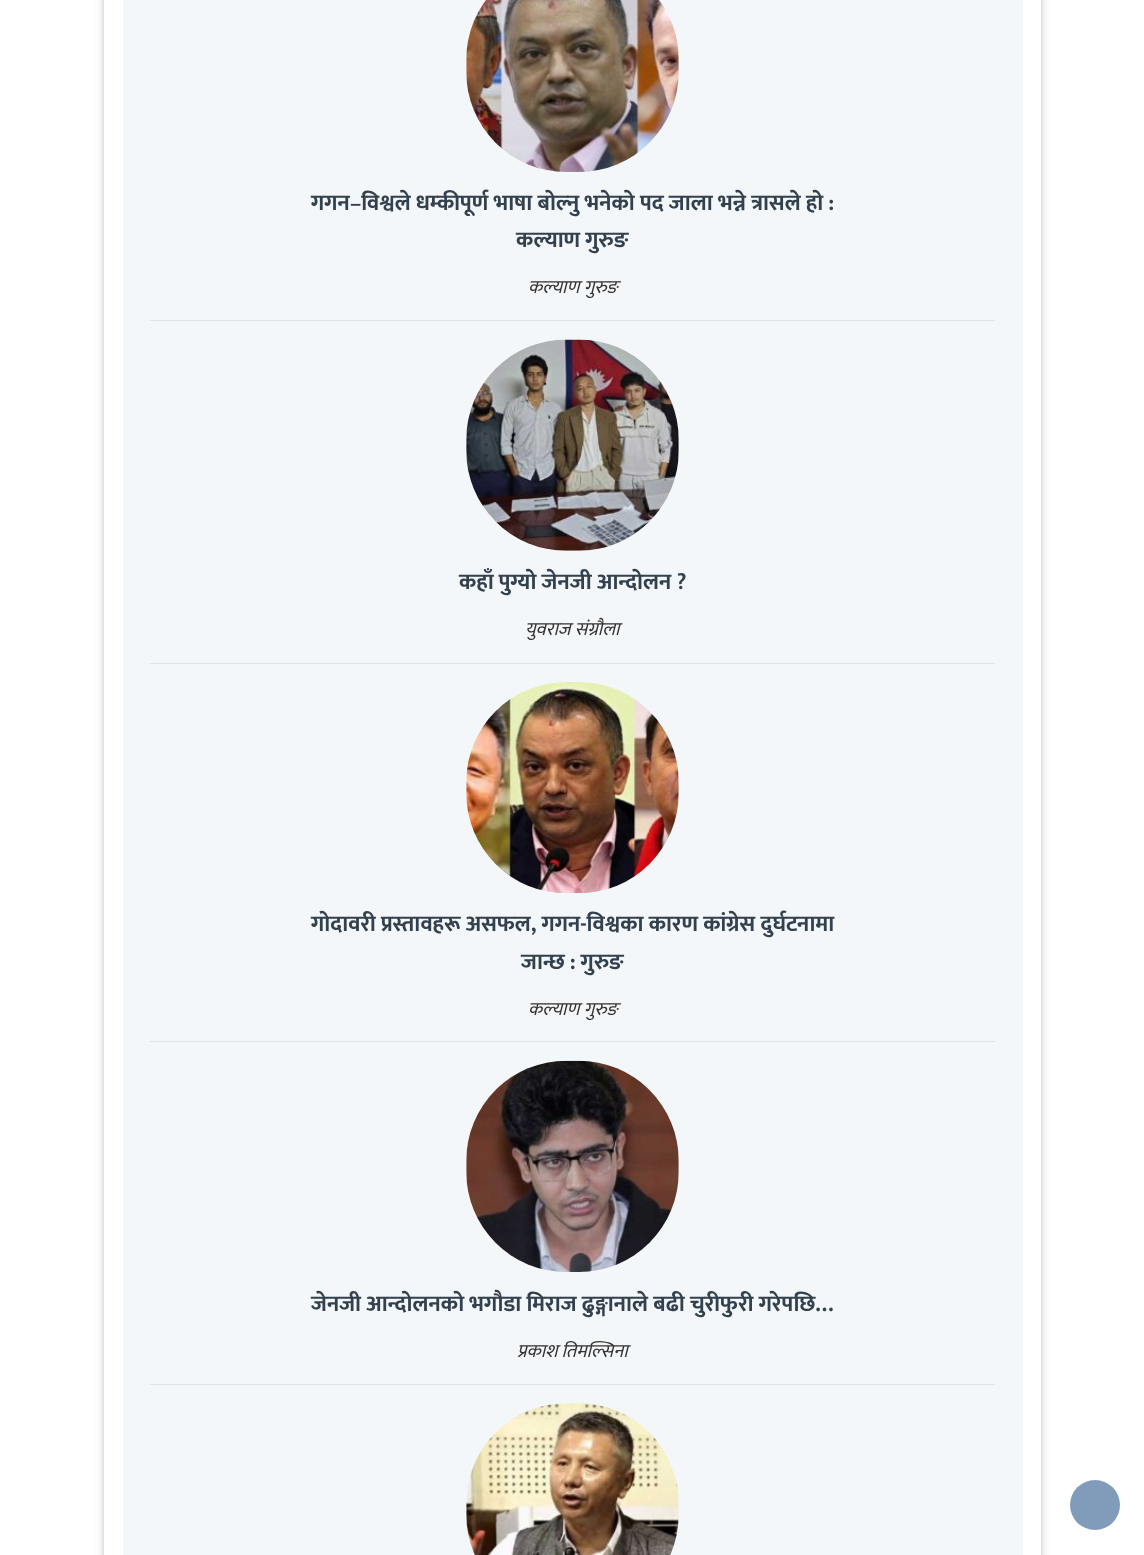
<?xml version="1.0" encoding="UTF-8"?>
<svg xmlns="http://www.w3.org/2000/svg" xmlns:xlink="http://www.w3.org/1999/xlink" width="1144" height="1555">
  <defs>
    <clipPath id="clip1"><path d="M 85 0 h 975 v 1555 h -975 z m 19 -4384 h 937 v 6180 h -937 z" clip-rule="evenodd" /></clipPath>
    <clipPath id="clip2"><path d="M 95 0 h 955 v 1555 h -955 z m 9 -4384 h 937 v 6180 h -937 z" clip-rule="evenodd" /></clipPath>
  </defs>
  <rect width="100%" height="100%" fill="#ffffff" />
  <g clip-path="url(#clip1)">
    <rect x="104" y="-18" width="937" height="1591" fill="#000000" fill-opacity="0.12" filter="blur(6px)" />
  </g>
  <g clip-path="url(#clip2)">
    <rect x="104" y="-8" width="937" height="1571" fill="#000000" fill-opacity="0.16" filter="blur(2.5px)" />
  </g>
  <rect x="123" width="900" height="1555" fill="#f4f7fa" />
  <rect x="150" y="320" width="845" height="1" fill="#e1e2e2" />
  <image x="466" y="0" width="213" height="172" xlink:href="image1.png" />
  <rect x="150" y="663" width="845" height="1" fill="#e1e2e2" />
  <image x="466" y="339" width="213" height="212" xlink:href="image2.png" />
  <rect x="150" y="1041" width="845" height="1" fill="#e1e2e2" />
  <image x="466" y="682" width="213" height="212" xlink:href="image3.png" />
  <rect x="150" y="1384" width="845" height="1" fill="#e1e2e2" />
  <image x="466" y="1060" width="213" height="212" xlink:href="image4.png" />
  <image x="466" y="1403" width="213" height="152" xlink:href="image5.png" />
  <circle cx="1095" cy="1505" r="25" fill="#819cba" />
  <text x="311" y="210" style="font-family: Mukta; font-size: 22.5px; font-weight: bold; fill: #33414e">गगन–विश्वले धम्कीपूर्ण भाषा बोल्नु भनेको पद जाला भन्ने त्रासले हो :</text>
  <text x="516" y="247" style="font-family: Mukta; font-size: 22.5px; font-weight: bold; fill: #33414e">कल्याण गुरुङ</text>
  <text x="528" y="293" style="font-family: Mukta; font-size: 18.75px; font-style: italic; fill: #333333">कल्याण गुरुङ</text>
  <text x="459" y="589" style="font-family: Mukta; font-size: 22.5px; font-weight: bold; fill: #33414e">कहाँ पुग्यो जेनजी आन्दोलन ?</text>
  <text x="525" y="635" style="font-family: Mukta; font-size: 18.75px; font-style: italic; fill: #333333">युवराज संग्रौला</text>
  <text x="311" y="931" style="font-family: Mukta; font-size: 22.5px; font-weight: bold; fill: #33414e">गोदावरी प्रस्तावहरू असफल, गगन-विश्वका कारण कांग्रेस दुर्घटनामा</text>
  <text x="521" y="969" style="font-family: Mukta; font-size: 22.5px; font-weight: bold; fill: #33414e">जान्छ : गुरुङ</text>
  <text x="528" y="1015" style="font-family: Mukta; font-size: 18.75px; font-style: italic; fill: #333333">कल्याण गुरुङ</text>
  <text x="311" y="1311" style="font-family: Mukta; font-size: 22.5px; font-weight: bold; fill: #33414e">जेनजी आन्दोलनको भगौडा मिराज ढुङ्गानाले बढी चुरीफुरी गरेपछि…</text>
  <text x="517" y="1357" style="font-family: Mukta; font-size: 18.75px; font-style: italic; fill: #333333">प्रकाश तिमल्सिना</text>
</svg>
